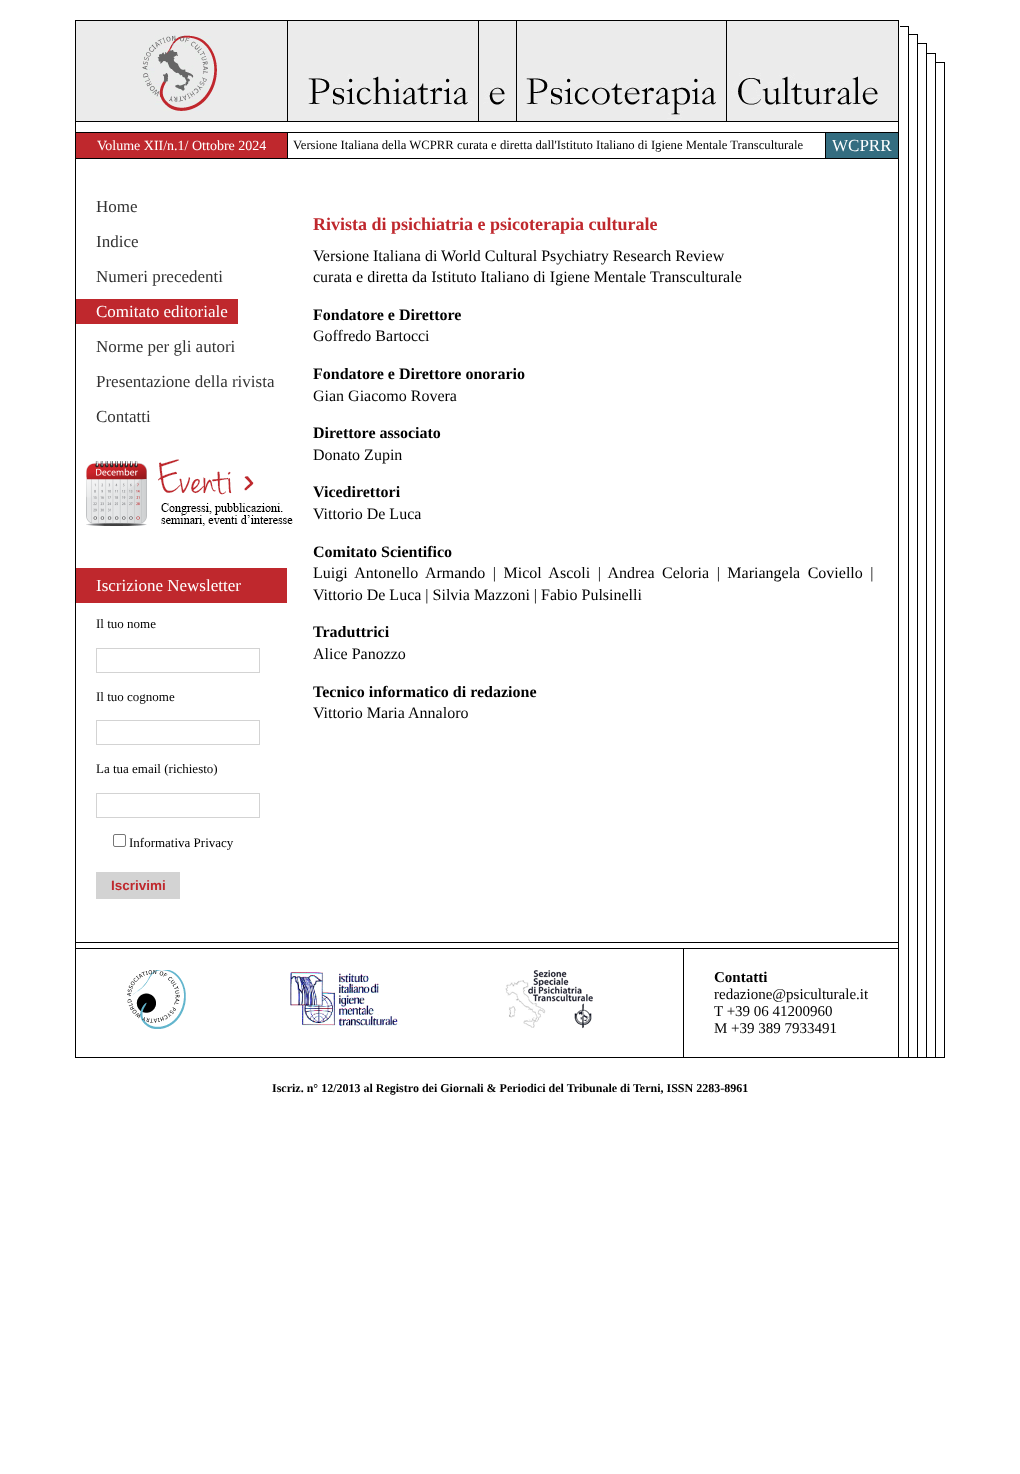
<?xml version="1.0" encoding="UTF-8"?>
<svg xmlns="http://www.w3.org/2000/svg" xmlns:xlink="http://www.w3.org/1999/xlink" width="1020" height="1474">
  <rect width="100%" height="100%" fill="#ffffff" />
  <image x="908" y="63" width="37" height="994" xlink:href="image1.png" />
  <rect x="75" y="1057" width="870" height="1" fill="#000000" />
  <image x="900" y="20" width="45" height="43" xlink:href="image2.png" />
  <rect x="75" y="20" width="824" height="1" fill="#000000" />
  <rect x="898" y="20" width="1" height="1037" fill="#000000" />
  <rect x="75" y="20" width="1" height="1037" fill="#000000" />
  <rect x="76" y="21" width="822" height="100" fill="#ebebeb" />
  <rect x="76" y="121" width="822" height="1" fill="#000000" />
  <image x="142" y="35" width="75" height="76" xlink:href="image3.png" />
  <image x="287" y="21" width="591" height="100" xlink:href="image4.png" />
  <rect x="76" y="132" width="822" height="1" fill="#000000" />
  <rect x="76" y="158" width="822" height="1" fill="#000000" />
  <rect x="76" y="133" width="211" height="25" fill="#bf282d" />
  <rect x="287" y="133" width="1" height="25" fill="#000000" />
  <rect x="826" y="133" width="72" height="25" fill="#346d80" />
  <rect x="825" y="133" width="1" height="25" fill="#000000" />
  <rect x="76" y="942" width="822" height="1" fill="#000000" />
  <rect x="76" y="299" width="162" height="25" fill="#bf282d" />
  <image x="86" y="459" width="207" height="67" xlink:href="image5.png" />
  <rect x="76" y="568" width="211" height="35" fill="#bf282d" />
  <rect x="96.5" y="648.5" width="163" height="24" fill="none" stroke="#d3d3d3" />
  <rect x="96.5" y="720.5" width="163" height="24" fill="none" stroke="#d3d3d3" />
  <rect x="96.5" y="793.5" width="163" height="24" fill="none" stroke="#d3d3d3" />
  <rect x="113.5" y="834.5" width="12" height="12" rx="1.5" fill="none" stroke="#767676" />
  <rect x="96" y="872" width="84" height="27" fill="#d3d3d3" />
  <rect x="76" y="948" width="822" height="1" fill="#000000" />
  <image x="127" y="970" width="59" height="59" xlink:href="image6.png" />
  <image x="290" y="972" width="110" height="54" xlink:href="image7.png" />
  <image x="505" y="970" width="88" height="59" xlink:href="image8.png" />
  <rect x="683" y="949" width="1" height="108" fill="#000000" />
  <text x="97" y="150" style="font-family: Liberation Serif; font-size: 14px; fill: #ffffff">Volume XII/n.1/ Ottobre 2024</text>
  <text x="293" y="149" style="font-family: Liberation Serif; font-size: 12.7px; fill: #000000">Versione Italiana della WCPRR curata e diretta dall'Istituto Italiano di Igiene Mentale Transculturale</text>
  <text x="832" y="151" style="font-family: Liberation Serif; font-size: 17px; fill: #ffffff">WCPRR</text>
  <text x="96" y="212" style="font-family: Liberation Serif; font-size: 17px; fill: #333333">Home</text>
  <text x="96" y="247" style="font-family: Liberation Serif; font-size: 17px; fill: #333333">Indice</text>
  <text x="96" y="282" style="font-family: Liberation Serif; font-size: 17px; fill: #333333">Numeri precedenti</text>
  <text x="96" y="317" style="font-family: Liberation Serif; font-size: 17px; fill: #ffffff">Comitato editoriale</text>
  <text x="96" y="352" style="font-family: Liberation Serif; font-size: 17px; fill: #333333">Norme per gli autori</text>
  <text x="96" y="387" style="font-family: Liberation Serif; font-size: 17px; fill: #333333">Presentazione della rivista</text>
  <text x="96" y="422" style="font-family: Liberation Serif; font-size: 17px; fill: #333333">Contatti</text>
  <text x="96" y="591" style="font-family: Liberation Serif; font-size: 17px; fill: #ffffff">Iscrizione Newsletter</text>
  <text x="96" y="628" style="font-family: Liberation Serif; font-size: 13px; fill: #000000">Il tuo nome</text>
  <text x="96" y="701" style="font-family: Liberation Serif; font-size: 13px; fill: #000000">Il tuo cognome</text>
  <text x="96" y="773" style="font-family: Liberation Serif; font-size: 13px; fill: #000000">La tua email (richiesto)</text>
  <text x="129" y="847" style="font-family: Liberation Serif; font-size: 13px; fill: #000000">Informativa Privacy</text>
  <text x="111" y="890" style="font-family: Liberation Sans; font-size: 13.5px; font-weight: bold; fill: #bf282d">Iscrivimi</text>
  <text x="313" y="230" style="font-family: Liberation Serif; font-size: 18px; font-weight: bold; fill: #bf282d">Rivista di psichiatria e psicoterapia culturale</text>
  <text x="313" y="261" style="font-family: Liberation Serif; font-size: 16px; fill: #000000">Versione Italiana di World Cultural Psychiatry Research Review</text>
  <text x="313" y="282" style="font-family: Liberation Serif; font-size: 16px; fill: #000000">curata e diretta da Istituto Italiano di Igiene Mentale Transculturale</text>
  <text x="313" y="320" style="font-family: Liberation Serif; font-size: 16px; font-weight: bold; fill: #000000">Fondatore e Direttore</text>
  <text x="313" y="341" style="font-family: Liberation Serif; font-size: 16px; fill: #000000">Goffredo Bartocci</text>
  <text x="313" y="379" style="font-family: Liberation Serif; font-size: 16px; font-weight: bold; fill: #000000">Fondatore e Direttore onorario</text>
  <text x="313" y="401" style="font-family: Liberation Serif; font-size: 16px; fill: #000000">Gian Giacomo Rovera</text>
  <text x="313" y="438" style="font-family: Liberation Serif; font-size: 16px; font-weight: bold; fill: #000000">Direttore associato</text>
  <text x="313" y="460" style="font-family: Liberation Serif; font-size: 16px; fill: #000000">Donato Zupin</text>
  <text x="313" y="497" style="font-family: Liberation Serif; font-size: 16px; font-weight: bold; fill: #000000">Vicedirettori</text>
  <text x="313" y="519" style="font-family: Liberation Serif; font-size: 16px; fill: #000000">Vittorio De Luca</text>
  <text x="313" y="557" style="font-family: Liberation Serif; font-size: 16px; font-weight: bold; fill: #000000">Comitato Scientifico</text>
  <text x="313" y="578" word-spacing="3.5" style="font-family: Liberation Serif; font-size: 16px; fill: #000000">Luigi Antonello Armando | Micol Ascoli | Andrea Celoria | Mariangela Coviello |</text>
  <text x="313" y="600" style="font-family: Liberation Serif; font-size: 16px; fill: #000000">Vittorio De Luca | Silvia Mazzoni | Fabio Pulsinelli</text>
  <text x="313" y="637" style="font-family: Liberation Serif; font-size: 16px; font-weight: bold; fill: #000000">Traduttrici</text>
  <text x="313" y="659" style="font-family: Liberation Serif; font-size: 16px; fill: #000000">Alice Panozzo</text>
  <text x="313" y="697" style="font-family: Liberation Serif; font-size: 16px; font-weight: bold; fill: #000000">Tecnico informatico di redazione</text>
  <text x="313" y="718" style="font-family: Liberation Serif; font-size: 16px; fill: #000000">Vittorio Maria Annaloro</text>
  <text x="714" y="982" style="font-family: Liberation Serif; font-size: 15px; font-weight: bold; fill: #000000">Contatti</text>
  <text x="714" y="999" style="font-family: Liberation Serif; font-size: 15px; fill: #000000">redazione@psiculturale.it</text>
  <text x="714" y="1016" style="font-family: Liberation Serif; font-size: 15px; fill: #000000">T +39 06 41200960</text>
  <text x="714" y="1033" style="font-family: Liberation Serif; font-size: 15px; fill: #000000">M +39 389 7933491</text>
  <text x="272" y="1092" style="font-family: Liberation Serif; font-size: 12px; font-weight: bold; fill: #000000">Iscriz. n° 12/2013 al Registro dei Giornali &amp; Periodici del Tribunale di Terni, ISSN 2283-8961</text>
</svg>
